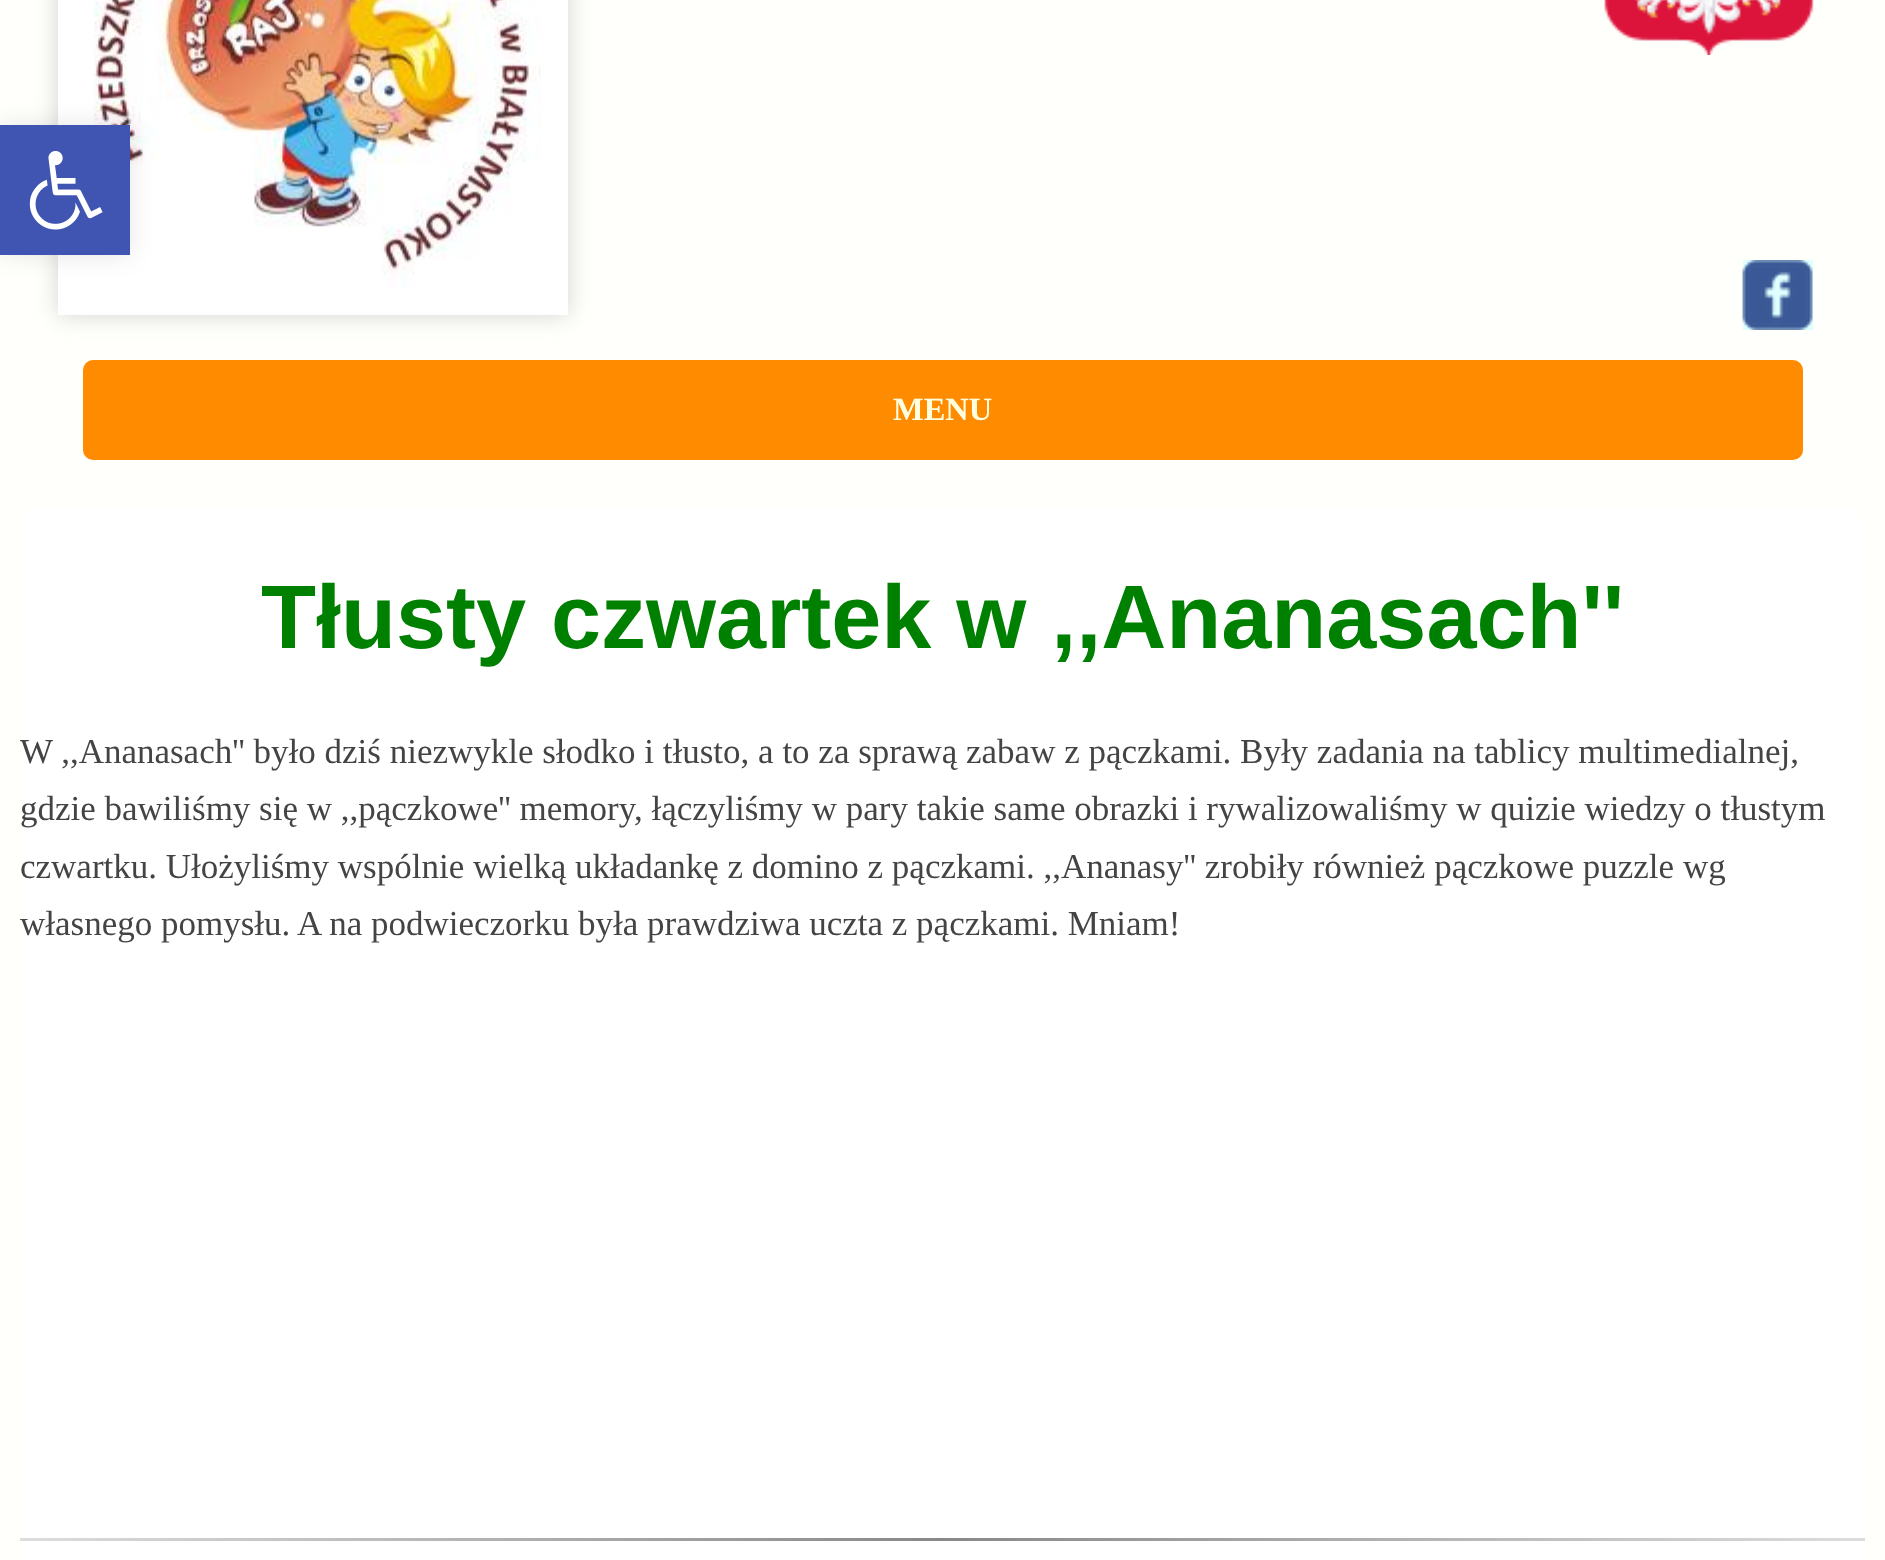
<?xml version="1.0" encoding="UTF-8"?>
<svg xmlns="http://www.w3.org/2000/svg" xmlns:xlink="http://www.w3.org/1999/xlink" width="1885" height="1560">
  <defs>
    <linearGradient id="g1" gradientUnits="userSpaceOnUse" x1="20" y1="1539" x2="1865" y2="1539"><stop offset="0" stop-color="#dddddd" /><stop offset="0.5" stop-color="#888888" /><stop offset="1" stop-color="#dddddd" /></linearGradient>
  </defs>
  <rect width="100%" height="100%" fill="#fffffb" />
  <rect x="58" y="-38" width="510" height="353" fill="#d3d3d3" filter="blur(12.5px)" />
  <rect x="58" width="510" height="315" fill="#ffffff" />
  <image x="93" y="0" width="448" height="289" xlink:href="image2.png" />
  <rect y="125" width="130" height="130" fill="#000000" fill-opacity="0.1" filter="blur(12.5px)" />
  <rect y="125" width="130" height="130" fill="#4054b2" />
  <image x="29" y="151" width="74" height="79" xlink:href="image1.png" />
  <image x="1604" y="0" width="210" height="55" xlink:href="image3.png" />
  <rect x="1743" y="260" width="70" height="70" fill="#e0ffff" />
  <image x="1742" y="260" width="71" height="70" xlink:href="image4.png" />
  <rect x="83" y="360" width="1720" height="100" rx="10" fill="#ff8c00" />
  <rect x="20" y="508" width="1845" height="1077" rx="25" fill="#ffffff" />
  <rect x="20" y="1538" width="1845" height="3" fill="url(#g1)" />
  <text x="893" y="420" style="font-family: Liberation Serif; font-size: 32.5px; font-weight: bold; fill: #ffffe0">MENU</text>
  <text x="261" y="648" style="font-family: Liberation Sans; font-size: 90px; font-weight: bold; fill: #008000">Tłusty czwartek w ,,Ananasach''</text>
  <text x="20" y="763" style="font-family: Liberation Serif; font-size: 35px; fill: #444444">W ,,Ananasach'' było dziś niezwykle słodko i tłusto, a to za sprawą zabaw z pączkami. Były zadania na tablicy multimedialnej,</text>
  <text x="20" y="820" style="font-family: Liberation Serif; font-size: 35px; fill: #444444">gdzie bawiliśmy się w ,,pączkowe'' memory, łączyliśmy w pary takie same obrazki i rywalizowaliśmy w quizie wiedzy o tłustym</text>
  <text x="20" y="878" style="font-family: Liberation Serif; font-size: 35px; fill: #444444">czwartku. Ułożyliśmy wspólnie wielką układankę z domino z pączkami. ,,Ananasy'' zrobiły również pączkowe puzzle wg</text>
  <text x="20" y="935" style="font-family: Liberation Serif; font-size: 35px; fill: #444444">własnego pomysłu. A na podwieczorku była prawdziwa uczta z pączkami. Mniam!</text>
</svg>
